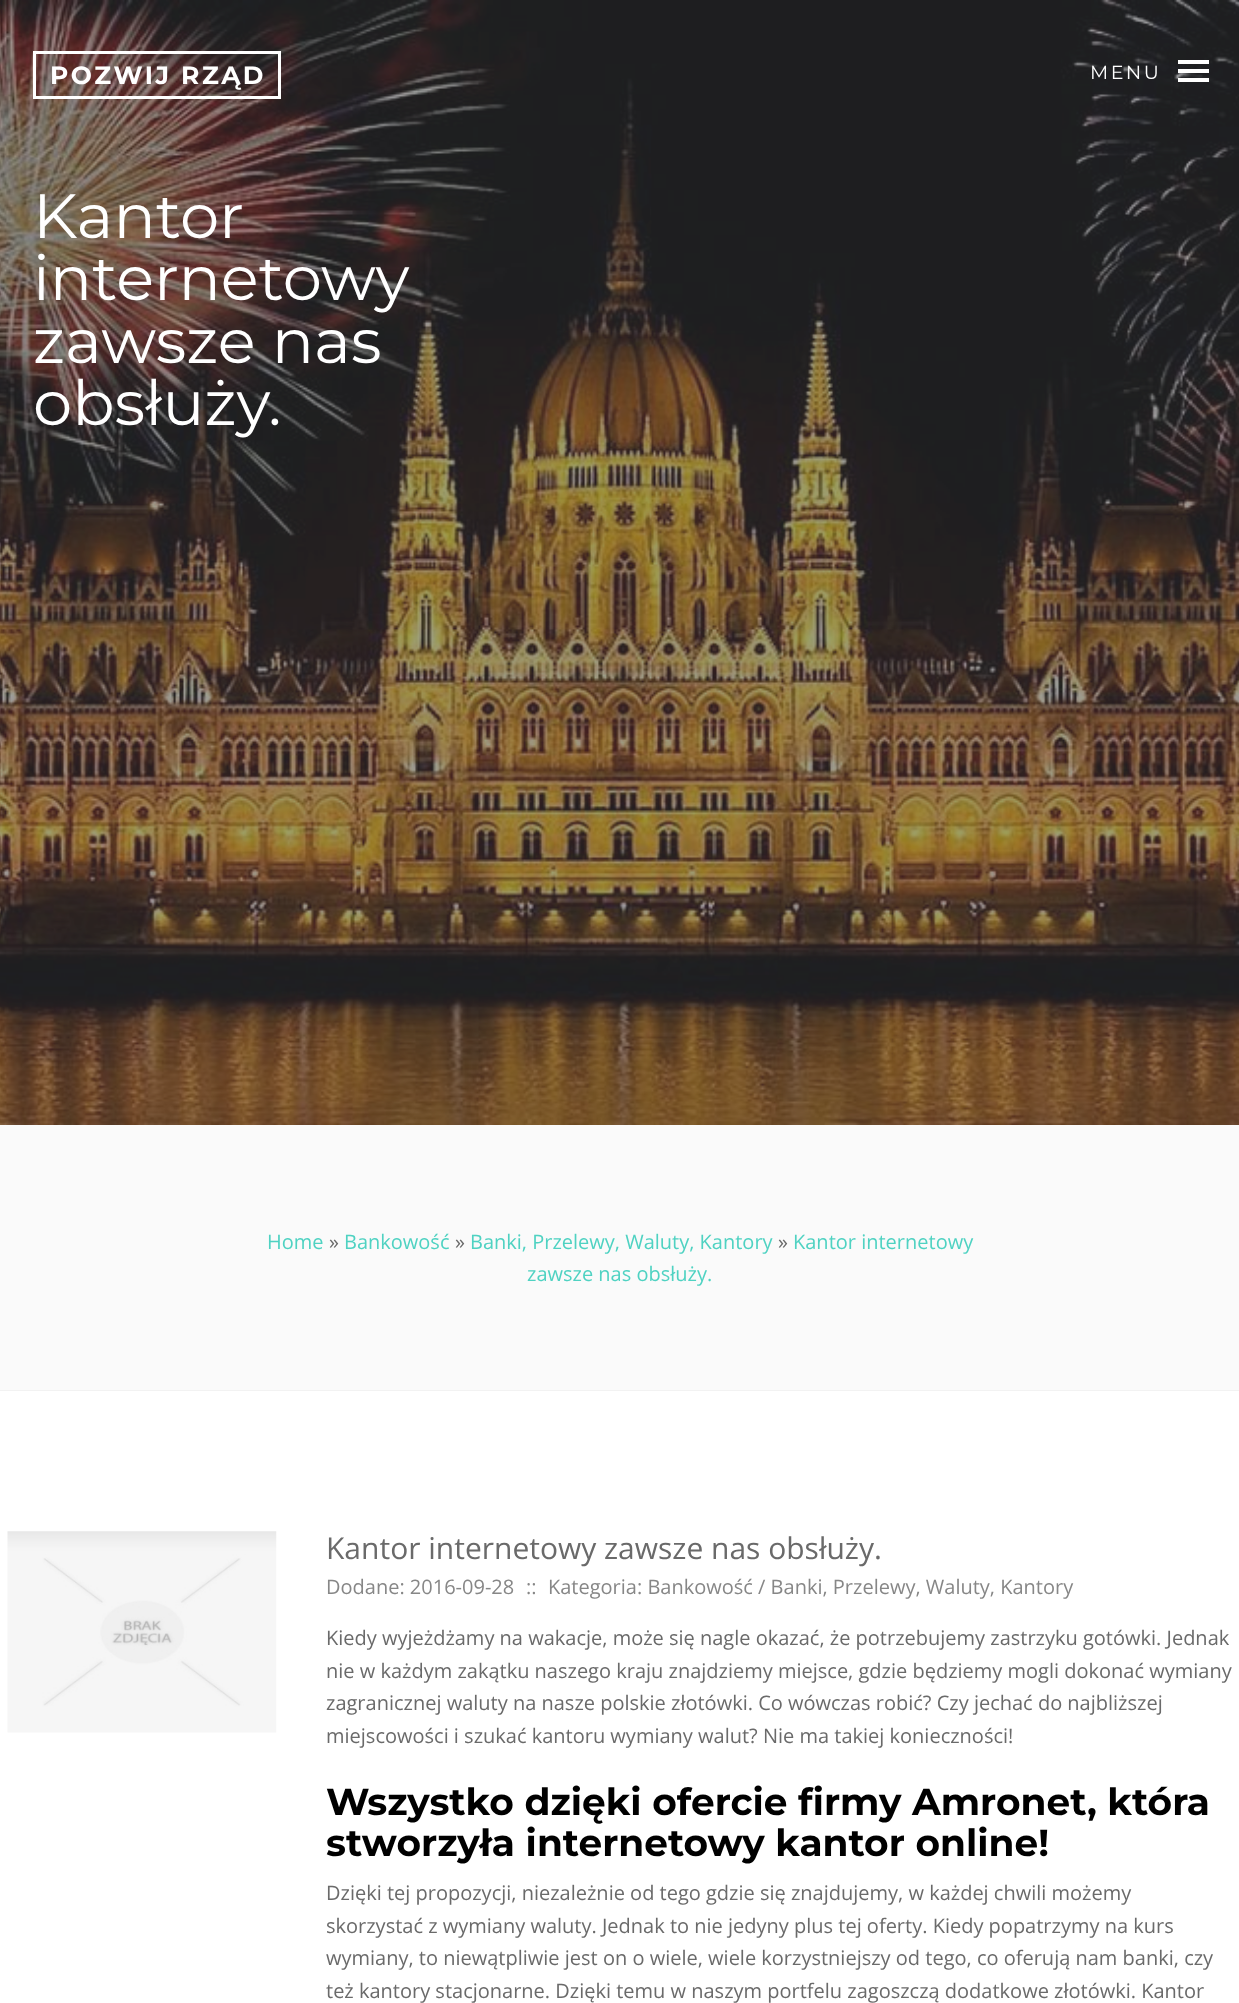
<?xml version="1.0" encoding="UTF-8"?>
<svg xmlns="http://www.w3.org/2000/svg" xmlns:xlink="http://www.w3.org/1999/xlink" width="1239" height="2003">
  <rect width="100%" height="100%" fill="#ffffff" />
  <image x="0" y="0" width="1239" height="1125" xlink:href="image1.png" />
  <rect x="34.5" y="52.5" width="245" height="45" fill="none" stroke="#ffffff" stroke-width="3" />
  <rect x="1178" y="69" width="31" height="4" fill="#ffffff" />
  <rect x="1178" y="60" width="31" height="4" fill="#ffffff" />
  <rect x="1178" y="78" width="31" height="4" fill="#ffffff" />
  <rect y="1125" width="1239" height="265" fill="#fafafa" />
  <rect y="1390" width="1239" height="1" fill="#f2f2f2" />
  <image x="7" y="1531" width="270" height="202" xlink:href="image2.png" />
  <text x="50" y="84" style="font-family: Montserrat; font-size: 25px; font-weight: bold; letter-spacing: 2.5px; fill: #ffffff">POZWIJ RZĄD</text>
  <text x="1090" y="79" style="font-family: Montserrat; font-size: 19px; letter-spacing: 2.5px; fill: #ffffff">MENU</text>
  <text x="33" y="238" style="font-family: Montserrat; font-size: 62.5px; fill: #ffffff">Kantor</text>
  <text x="33" y="300" style="font-family: Montserrat; font-size: 62.5px; fill: #ffffff">internetowy</text>
  <text x="33" y="363" style="font-family: Montserrat; font-size: 62.5px; fill: #ffffff">zawsze nas</text>
  <text x="33" y="425" style="font-family: Montserrat; font-size: 62.5px; fill: #ffffff">obsłuży.</text>
  <text x="267" y="1249" style="font-family: Open Sans; font-size: 20px; fill: #4fd2c2">Home</text>
  <text x="329" y="1249" style="font-family: Open Sans; font-size: 20px; fill: #6a6a6a">»</text>
  <text x="344" y="1249" style="font-family: Open Sans; font-size: 20px; fill: #4fd2c2">Bankowość</text>
  <text x="455" y="1249" style="font-family: Open Sans; font-size: 20px; fill: #6a6a6a">»</text>
  <text x="470" y="1249" style="font-family: Open Sans; font-size: 20px; fill: #4fd2c2">Banki, Przelewy, Waluty, Kantory</text>
  <text x="778" y="1249" style="font-family: Open Sans; font-size: 20px; fill: #6a6a6a">»</text>
  <text x="793" y="1249" style="font-family: Open Sans; font-size: 20px; fill: #4fd2c2">Kantor internetowy</text>
  <text x="527" y="1281" style="font-family: Open Sans; font-size: 20px; fill: #4fd2c2">zawsze nas obsłuży.</text>
  <text x="326" y="1559" style="font-family: Open Sans; font-size: 30px; fill: #6a6a6a">Kantor internetowy zawsze nas obsłuży.</text>
  <text x="326" y="1594" style="font-family: Open Sans; font-size: 20px; fill: #878787">Dodane: 2016-09-28</text>
  <text x="526" y="1594" style="font-family: Open Sans; font-size: 20px; fill: #878787">::</text>
  <text x="548" y="1594" style="font-family: Open Sans; font-size: 20px; fill: #878787">Kategoria: Bankowość / Banki, Przelewy, Waluty, Kantory</text>
  <text x="326" y="1645" style="font-family: Open Sans; font-size: 20px; fill: #6a6a6a">Kiedy wyjeżdżamy na wakacje, może się nagle okazać, że potrzebujemy zastrzyku gotówki. Jednak</text>
  <text x="326" y="1678" style="font-family: Open Sans; font-size: 20px; fill: #6a6a6a">nie w każdym zakątku naszego kraju znajdziemy miejsce, gdzie będziemy mogli dokonać wymiany</text>
  <text x="326" y="1710" style="font-family: Open Sans; font-size: 20px; fill: #6a6a6a">zagranicznej waluty na nasze polskie złotówki. Co wówczas robić? Czy jechać do najbliższej</text>
  <text x="326" y="1743" style="font-family: Open Sans; font-size: 20px; fill: #6a6a6a">miejscowości i szukać kantoru wymiany walut? Nie ma takiej konieczności!</text>
  <text x="326" y="1815" style="font-family: Montserrat; font-size: 37.5px; font-weight: bold; fill: #000000">Wszystko dzięki ofercie firmy Amronet, która</text>
  <text x="326" y="1856" style="font-family: Montserrat; font-size: 37.5px; font-weight: bold; fill: #000000">stworzyła internetowy kantor online!</text>
  <text x="326" y="1900" style="font-family: Open Sans; font-size: 20px; fill: #6a6a6a">Dzięki tej propozycji, niezależnie od tego gdzie się znajdujemy, w każdej chwili możemy</text>
  <text x="326" y="1933" style="font-family: Open Sans; font-size: 20px; fill: #6a6a6a">skorzystać z wymiany waluty. Jednak to nie jedyny plus tej oferty. Kiedy popatrzymy na kurs</text>
  <text x="326" y="1965" style="font-family: Open Sans; font-size: 20px; fill: #6a6a6a">wymiany, to niewątpliwie jest on o wiele, wiele korzystniejszy od tego, co oferują nam banki, czy</text>
  <text x="326" y="1998" style="font-family: Open Sans; font-size: 20px; fill: #6a6a6a">też kantory stacjonarne. Dzięki temu w naszym portfelu zagoszczą dodatkowe złotówki. Kantor</text>
</svg>
